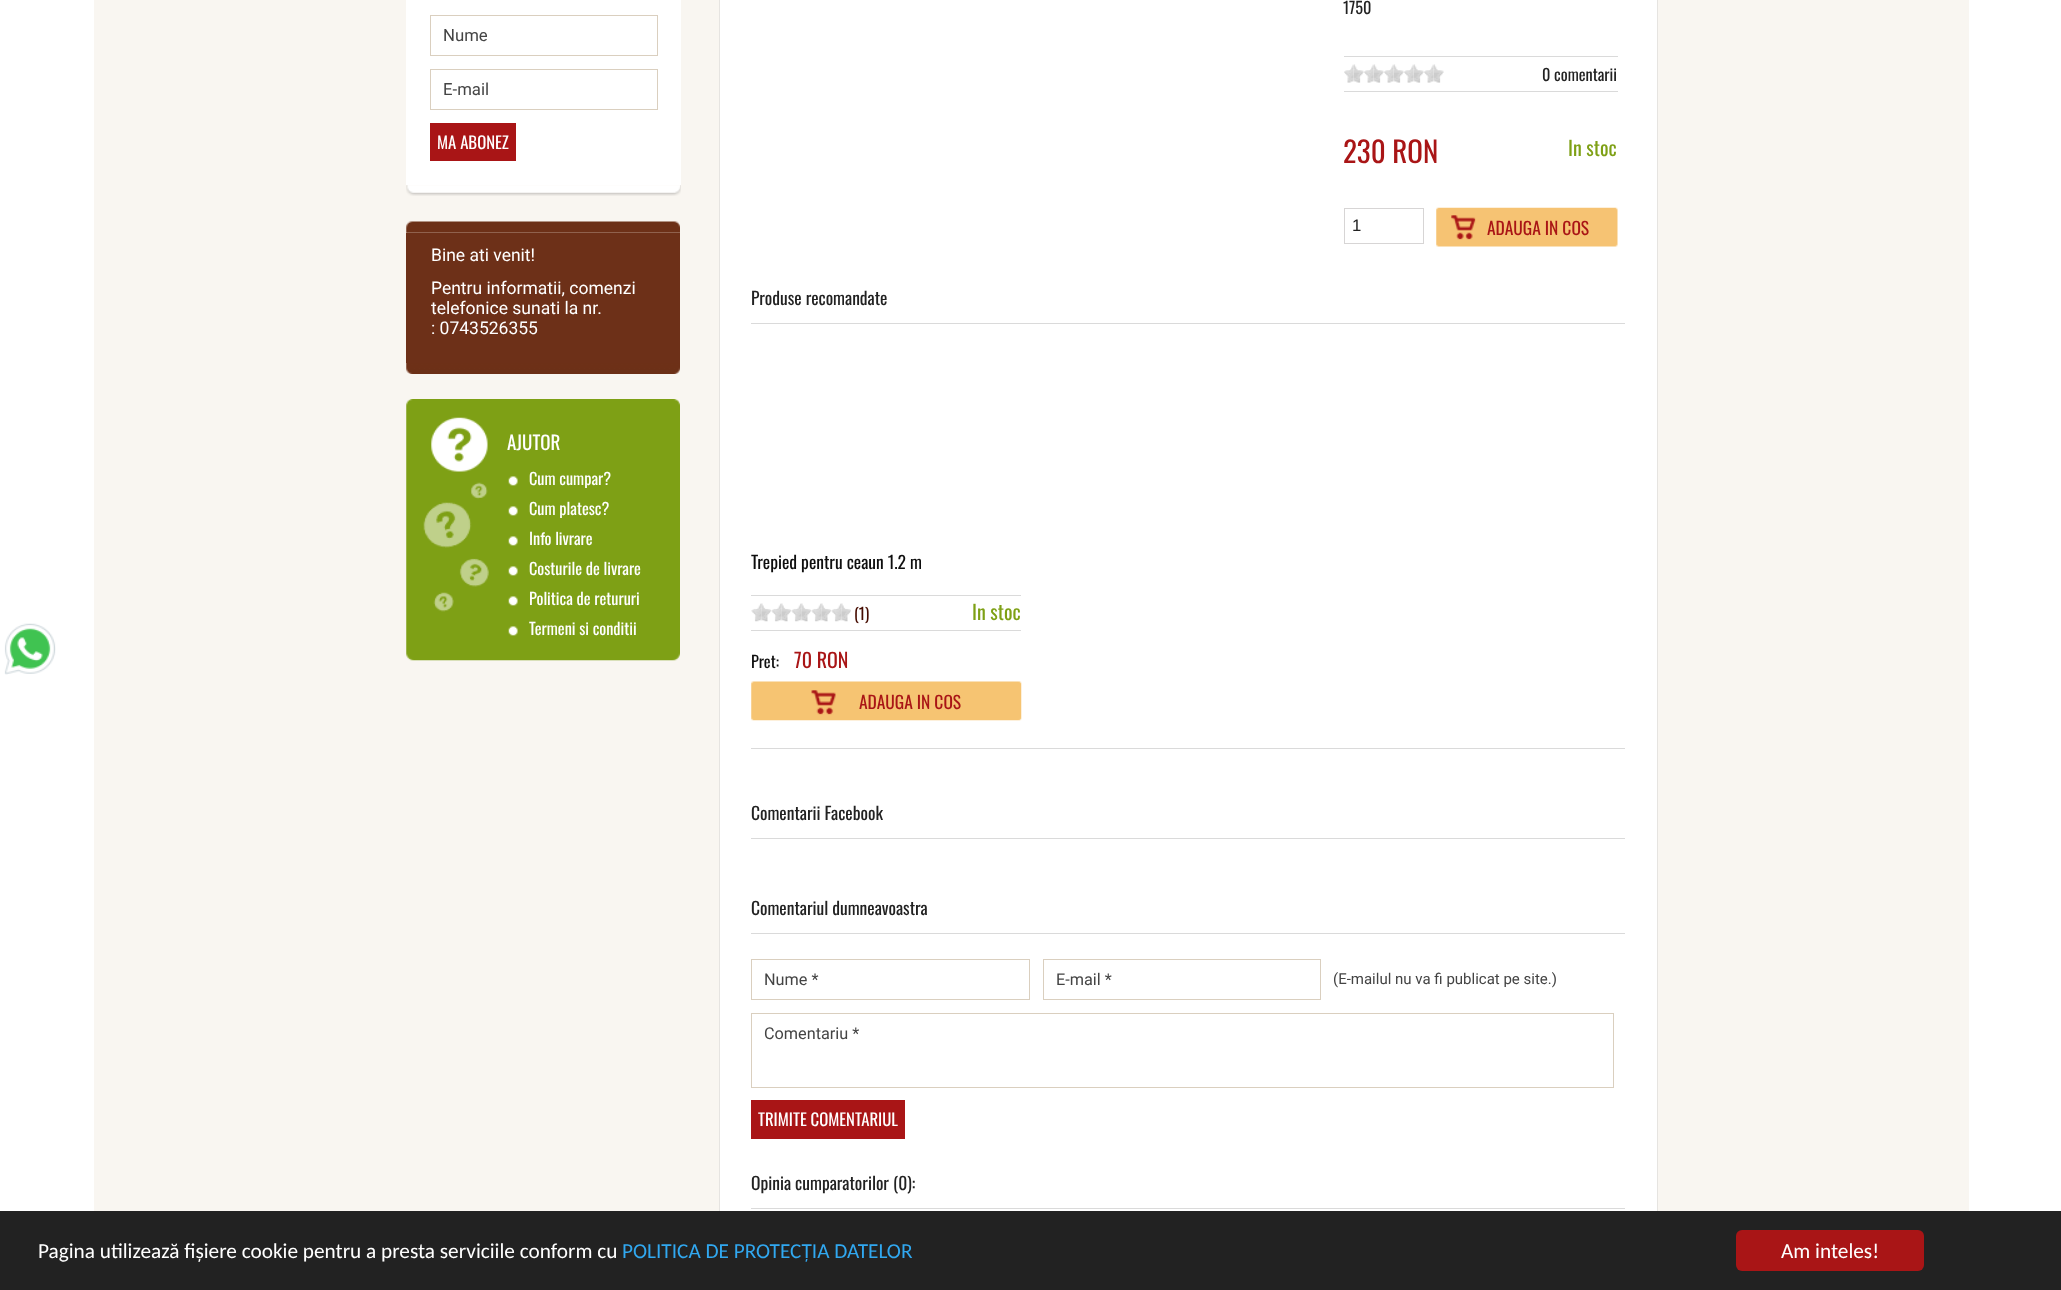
<?xml version="1.0" encoding="UTF-8"?>
<svg xmlns="http://www.w3.org/2000/svg" xmlns:xlink="http://www.w3.org/1999/xlink" width="2061" height="1290">
  <rect width="100%" height="100%" fill="#ffffff" />
  <image x="4" y="623" width="52" height="52" xlink:href="image1.png" />
  <rect x="94" width="1875" height="1211" fill="#f9f6f1" />
  <rect x="406" width="275" height="185" fill="#ffffff" />
  <rect x="430.5" y="15.5" width="227" height="40" fill="none" stroke="#dacfbf" />
  <rect x="430.5" y="69.5" width="227" height="40" fill="none" stroke="#dacfbf" />
  <rect x="430" y="123" width="86" height="38" fill="#a91516" />
  <image x="406" y="185" width="275" height="11" xlink:href="image2.png" />
  <image x="406" y="221" width="274" height="12" xlink:href="image3.png" />
  <rect x="406" y="233" width="274" height="130" fill="#6d3018" />
  <image x="406" y="363" width="274" height="11" xlink:href="image4.png" />
  <image x="406" y="399" width="274" height="262" xlink:href="image5.png" />
  <rect x="720" width="937" height="1211" fill="#ffffff" />
  <rect x="719.5" y="-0.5" width="938" height="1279" fill="none" stroke="#e6e4e1" />
  <rect x="1344" y="56" width="274" height="1" fill="#dadada" />
  <rect x="1344" y="91" width="274" height="1" fill="#dadada" />
  <image x="1344" y="64" width="10" height="19" xlink:href="image6.png" />
  <image x="1354" y="64" width="10" height="19" xlink:href="image7.png" />
  <image x="1364" y="64" width="10" height="19" xlink:href="image8.png" />
  <image x="1374" y="64" width="10" height="19" xlink:href="image7.png" />
  <image x="1384" y="64" width="10" height="19" xlink:href="image8.png" />
  <image x="1394" y="64" width="10" height="19" xlink:href="image7.png" />
  <image x="1404" y="64" width="10" height="19" xlink:href="image8.png" />
  <image x="1414" y="64" width="10" height="19" xlink:href="image7.png" />
  <image x="1424" y="64" width="10" height="19" xlink:href="image8.png" />
  <image x="1434" y="64" width="10" height="19" xlink:href="image9.png" />
  <rect x="1344.5" y="208.5" width="79" height="35" fill="none" stroke="#d7d5d5" />
  <image x="1436" y="207" width="182" height="40" xlink:href="image10.png" />
  <rect x="751" y="323" width="874" height="1" fill="#dadada" />
  <rect x="751" y="748" width="874" height="1" fill="#dadada" />
  <rect x="751" y="595" width="270" height="1" fill="#dadada" />
  <rect x="751" y="630" width="270" height="1" fill="#dadada" />
  <image x="751" y="603" width="11" height="19" xlink:href="image11.png" />
  <image x="761" y="603" width="10" height="19" xlink:href="image12.png" />
  <image x="771" y="603" width="11" height="19" xlink:href="image11.png" />
  <image x="781" y="603" width="10" height="19" xlink:href="image12.png" />
  <image x="791" y="603" width="11" height="19" xlink:href="image11.png" />
  <image x="801" y="603" width="10" height="19" xlink:href="image12.png" />
  <image x="811" y="603" width="11" height="19" xlink:href="image11.png" />
  <image x="821" y="603" width="10" height="19" xlink:href="image12.png" />
  <image x="831" y="603" width="11" height="19" xlink:href="image11.png" />
  <image x="841" y="603" width="10" height="19" xlink:href="image12.png" />
  <image x="751" y="681" width="271" height="40" xlink:href="image13.png" />
  <rect x="751" y="838" width="874" height="1" fill="#dadada" />
  <rect x="751" y="933" width="874" height="1" fill="#dadada" />
  <rect x="751.5" y="959.5" width="278" height="40" fill="none" stroke="#dacfbf" />
  <rect x="1043.5" y="959.5" width="277" height="40" fill="none" stroke="#dacfbf" />
  <rect x="751.5" y="1013.5" width="862" height="74" fill="none" stroke="#dacfbf" />
  <rect x="751" y="1100" width="154" height="39" fill="#a91516" />
  <rect x="751" y="1208" width="874" height="1" fill="#dadada" />
  <rect y="1211" width="2061" height="79" fill="#222222" />
  <rect x="1736" y="1230" width="188" height="41" rx="6" fill="#a91516" />
  <text x="443" y="41" style="font-family: Roboto; font-size: 16.75px; fill: #444444">Nume</text>
  <text x="443" y="95" style="font-family: Roboto; font-size: 16.75px; fill: #444444">E-mail</text>
  <text x="437" y="149" style="font-family: Oswald; font-size: 16.75px; fill: #ffffff">MA ABONEZ</text>
  <text x="431" y="261" style="font-family: Roboto; font-size: 17.5px; fill: #ffffff">Bine ati venit!</text>
  <text x="431" y="294" style="font-family: Roboto; font-size: 17.5px; fill: #ffffff">Pentru informatii, comenzi</text>
  <text x="431" y="314" style="font-family: Roboto; font-size: 17.5px; fill: #ffffff">telefonice sunati la nr.</text>
  <text x="431" y="334" style="font-family: Roboto; font-size: 17.5px; fill: #ffffff">: 0743526355</text>
  <text x="507" y="450" style="font-family: Oswald; font-size: 19px; fill: #ffffff">AJUTOR</text>
  <text x="529" y="485" style="font-family: Oswald; font-size: 16.25px; fill: #ffffff">Cum cumpar?</text>
  <text x="529" y="515" style="font-family: Oswald; font-size: 16.25px; fill: #ffffff">Cum platesc?</text>
  <text x="529" y="545" style="font-family: Oswald; font-size: 16.25px; fill: #ffffff">Info livrare</text>
  <text x="529" y="575" style="font-family: Oswald; font-size: 16.25px; fill: #ffffff">Costurile de livrare</text>
  <text x="529" y="605" style="font-family: Oswald; font-size: 16.25px; fill: #ffffff">Politica de retururi</text>
  <text x="529" y="635" style="font-family: Oswald; font-size: 16.25px; fill: #ffffff">Termeni si conditii</text>
  <text x="1343" y="14" style="font-family: Oswald; font-size: 16.25px; fill: #222222">1750</text>
  <text x="1542" y="81" style="font-family: Oswald; font-size: 16.25px; fill: #222222">0 comentarii</text>
  <text x="1343" y="163" style="font-family: Oswald; font-size: 29px; fill: #a91516">230 RON</text>
  <text x="1568" y="156" style="font-family: Oswald; font-size: 20px; fill: #7ea015">In stoc</text>
  <text x="1352" y="231" style="font-family: Liberation Sans; font-size: 16.75px; fill: #222222">1</text>
  <text x="1487" y="235" style="font-family: Oswald; font-size: 17.5px; fill: #a91516">ADAUGA IN COS</text>
  <text x="751" y="305" style="font-family: Oswald; font-size: 17.5px; fill: #222222">Produse recomandate</text>
  <text x="751" y="569" style="font-family: Oswald; font-size: 17.5px; fill: #0e0e0e">Trepied pentru ceaun 1.2 m</text>
  <text x="854" y="620" style="font-family: Oswald; font-size: 16.25px; fill: #460c01">(1)</text>
  <text x="972" y="620" style="font-family: Oswald; font-size: 20px; fill: #7ea015">In stoc</text>
  <text x="751" y="668" style="font-family: Oswald; font-size: 16.25px; fill: #0e0e0e">Pret:</text>
  <text x="794" y="668" style="font-family: Oswald; font-size: 20px; fill: #a91516">70 RON</text>
  <text x="859" y="709" style="font-family: Oswald; font-size: 17.5px; fill: #a91516">ADAUGA IN COS</text>
  <text x="751" y="820" style="font-family: Oswald; font-size: 17.5px; fill: #222222">Comentarii Facebook</text>
  <text x="751" y="915" style="font-family: Oswald; font-size: 17.5px; fill: #222222">Comentariul dumneavoastra</text>
  <text x="764" y="985" style="font-family: Roboto; font-size: 16.25px; fill: #444444">Nume *</text>
  <text x="1056" y="985" style="font-family: Roboto; font-size: 16.25px; fill: #444444">E-mail *</text>
  <text x="1333" y="984" style="font-family: Roboto; font-size: 15px; fill: #444444">(E-mailul nu va fi publicat pe site.)</text>
  <text x="764" y="1039" style="font-family: Roboto; font-size: 16.25px; fill: #444444">Comentariu *</text>
  <text x="758" y="1126" style="font-family: Oswald; font-size: 16.75px; fill: #ffffff">TRIMITE COMENTARIUL</text>
  <text x="751" y="1190" style="font-family: Oswald; font-size: 17.5px; fill: #222222">Opinia cumparatorilor (0):</text>
  <text x="38" y="1258" style="font-family: Carlito; font-size: 21.25px; fill: #ffffff">Pagina utilizează fișiere cookie pentru a presta serviciile conform cu</text>
  <text x="622" y="1258" style="font-family: Carlito; font-size: 21.25px; fill: #31a8f0">POLITICA DE PROTECȚIA DATELOR</text>
  <text x="1781" y="1258" style="font-family: Carlito; font-size: 21.25px; fill: #ffffff">Am inteles!</text>
</svg>
